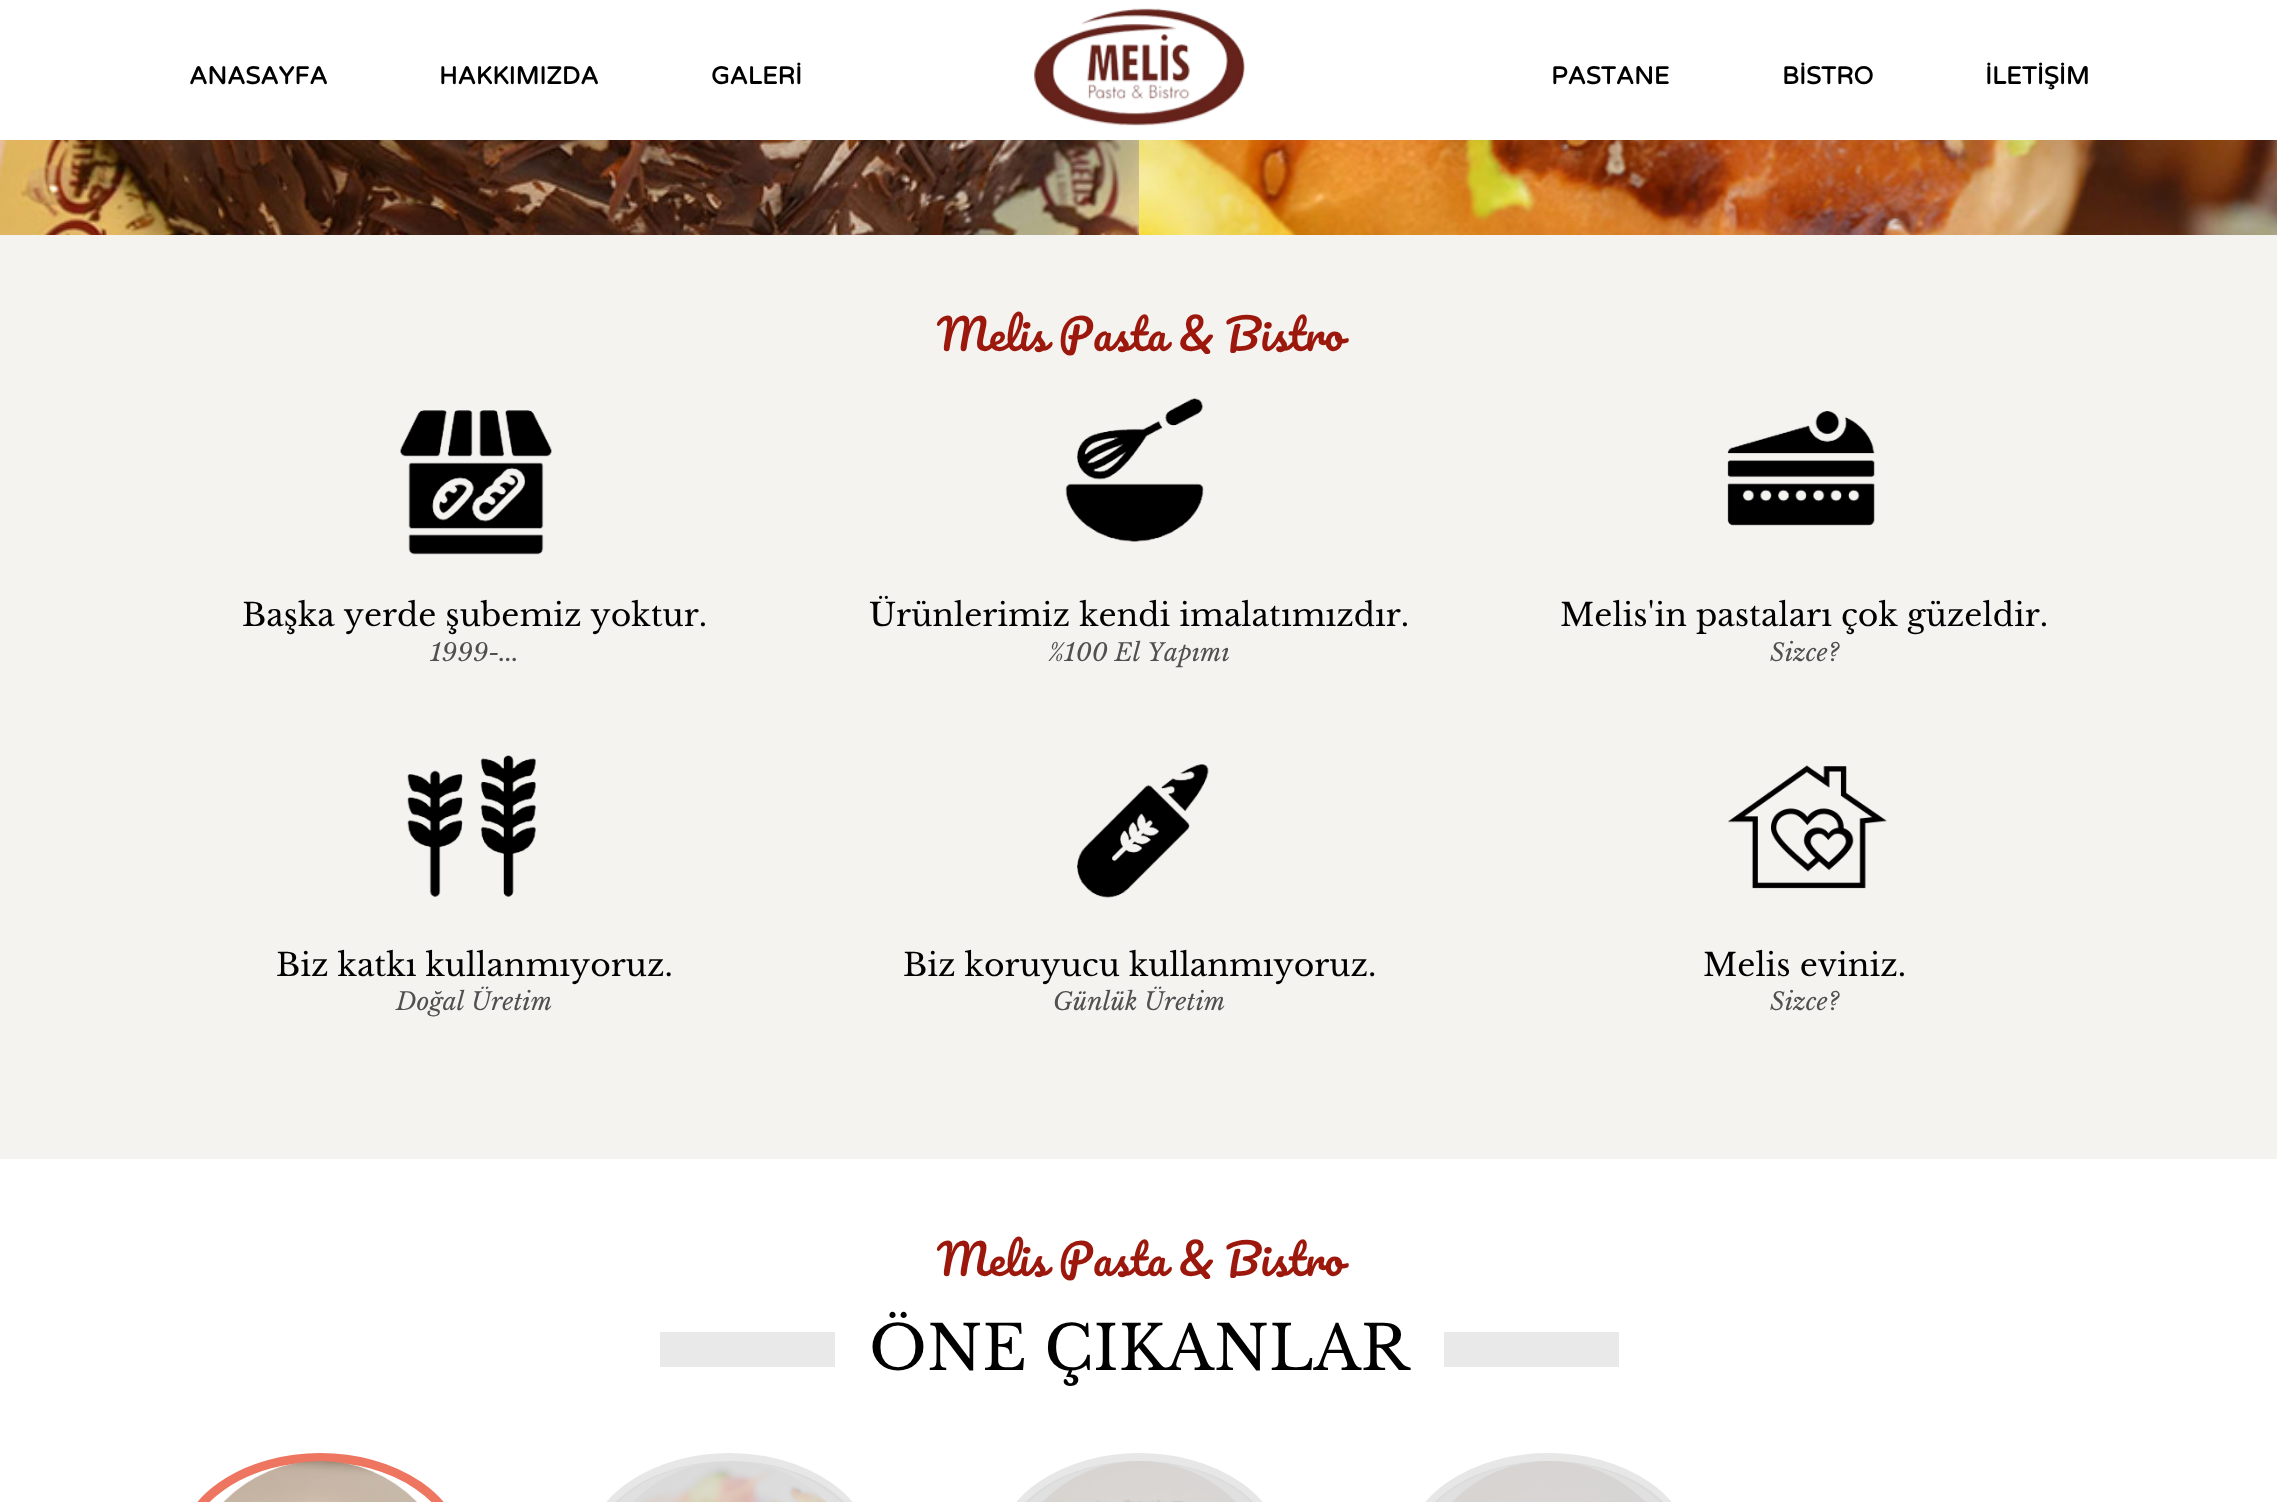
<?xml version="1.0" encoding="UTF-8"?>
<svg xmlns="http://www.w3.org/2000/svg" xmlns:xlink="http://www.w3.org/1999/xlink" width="2277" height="1502">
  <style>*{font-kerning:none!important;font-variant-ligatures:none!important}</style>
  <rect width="100%" height="100%" fill="#ffffff" />
  <image x="1034" y="8" width="211" height="118" xlink:href="image1.png" />
  <image x="0" y="140" width="1139" height="95" xlink:href="image2.png" />
  <image x="1139" y="140" width="1138" height="95" xlink:href="image3.png" />
  <rect y="235" width="2277" height="924" fill="#f5f3f0" />
  <image x="400" y="410" width="152" height="145" xlink:href="image4.png" />
  <image x="1065" y="398" width="139" height="144" xlink:href="image5.png" />
  <image x="1727" y="411" width="148" height="115" xlink:href="image6.png" />
  <image x="407" y="755" width="129" height="142" xlink:href="image7.png" />
  <image x="1077" y="764" width="132" height="134" xlink:href="image8.png" />
  <image x="1728" y="765" width="159" height="124" xlink:href="image9.png" />
  <rect x="660" y="1332" width="175" height="35" fill="#e9e9e9" />
  <rect x="1444" y="1332" width="175" height="35" fill="#e9e9e9" />
  <rect x="181.5" y="1457.5" width="278" height="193" rx="139" fill="none" stroke="#ee7560" stroke-width="9" />
  <image x="223" y="1461" width="194" height="41" xlink:href="image10.png" />
  <rect x="590.5" y="1457.5" width="278" height="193" rx="139" fill="none" stroke="#e7e7e7" stroke-width="9" />
  <image x="634" y="1462" width="193" height="40" xlink:href="image11.png" />
  <rect x="595" y="1461" width="270" height="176" rx="135" fill="#d8d8d8" fill-opacity="0.8" />
  <rect x="1000.5" y="1457.5" width="278" height="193" rx="139" fill="none" stroke="#e7e7e7" stroke-width="9" />
  <image x="1042" y="1461" width="194" height="41" xlink:href="image12.png" />
  <rect x="1005" y="1461" width="269" height="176" rx="134.5" fill="#d8d8d8" fill-opacity="0.8" />
  <rect x="1409.5" y="1457.5" width="278" height="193" rx="139" fill="none" stroke="#e7e7e7" stroke-width="9" />
  <image x="1452" y="1461" width="193" height="41" xlink:href="image13.png" />
  <rect x="1414" y="1461" width="270" height="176" rx="135" fill="#d8d8d8" fill-opacity="0.8" />
  <text x="189" y="84" style="font-family: Varela Round; font-size: 24.5px; font-weight: bold; fill: #000000">ANASAYFA</text>
  <text x="439" y="84" style="font-family: Varela Round; font-size: 24.5px; font-weight: bold; fill: #000000">HAKKIMIZDA</text>
  <text x="711" y="84" style="font-family: Varela Round; font-size: 24.5px; font-weight: bold; fill: #000000">GALERİ</text>
  <text x="1551" y="84" style="font-family: Varela Round; font-size: 24.5px; font-weight: bold; fill: #000000">PASTANE</text>
  <text x="1782" y="84" style="font-family: Varela Round; font-size: 24.5px; font-weight: bold; fill: #000000">BİSTRO</text>
  <text x="1985" y="84" style="font-family: Varela Round; font-size: 24.5px; font-weight: bold; fill: #000000">İLETİŞİM</text>
  <text x="937" y="351" word-spacing="0.5" style="font-family: Pacifico; font-size: 42px; fill: #9c180c">Melis Pasta &amp; Bistro</text>
  <text x="242" y="626" style="font-family: Libre Baskerville; font-size: 31.5px; fill: #000000">Başka yerde şubemiz yoktur.</text>
  <text x="430" y="661" style="font-family: Libre Baskerville; font-size: 24.5px; font-style: italic; fill: #505050">1999-...</text>
  <text x="869" y="626" style="font-family: Libre Baskerville; font-size: 31.5px; fill: #000000">Ürünlerimiz kendi imalatımızdır.</text>
  <text x="1048" y="661" style="font-family: Libre Baskerville; font-size: 24.5px; font-style: italic; fill: #505050">%100 El Yapımı</text>
  <text x="1560" y="626" style="font-family: Libre Baskerville; font-size: 31.5px; fill: #000000">Melis'in pastaları çok güzeldir.</text>
  <text x="1770" y="661" style="font-family: Libre Baskerville; font-size: 24.5px; font-style: italic; fill: #505050">Sizce?</text>
  <text x="276" y="976" style="font-family: Libre Baskerville; font-size: 31.5px; fill: #000000">Biz katkı kullanmıyoruz.</text>
  <text x="396" y="1010" style="font-family: Libre Baskerville; font-size: 24.5px; font-style: italic; fill: #505050">Doğal Üretim</text>
  <text x="903" y="976" style="font-family: Libre Baskerville; font-size: 31.5px; fill: #000000">Biz koruyucu kullanmıyoruz.</text>
  <text x="1053" y="1010" style="font-family: Libre Baskerville; font-size: 24.5px; font-style: italic; fill: #505050">Günlük Üretim</text>
  <text x="1703" y="976" style="font-family: Libre Baskerville; font-size: 31.5px; fill: #000000">Melis eviniz.</text>
  <text x="1770" y="1010" style="font-family: Libre Baskerville; font-size: 24.5px; font-style: italic; fill: #505050">Sizce?</text>
  <text x="937" y="1276" word-spacing="0.5" style="font-family: Pacifico; font-size: 42px; fill: #9c180c">Melis Pasta &amp; Bistro</text>
  <text x="869" y="1370" style="font-family: Libre Baskerville; font-size: 61.25px; fill: #000000">ÖNE ÇIKANLAR</text>
</svg>
